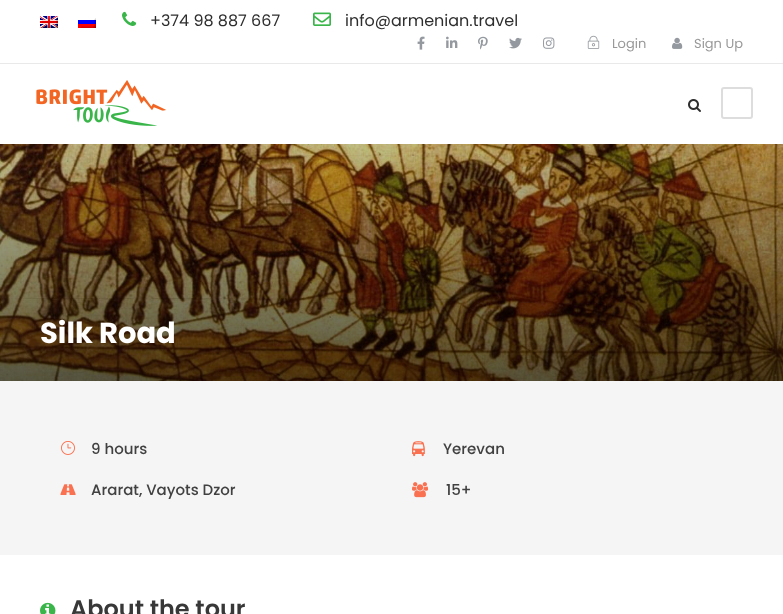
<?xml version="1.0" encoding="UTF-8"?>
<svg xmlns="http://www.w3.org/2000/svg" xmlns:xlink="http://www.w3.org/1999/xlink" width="783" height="614">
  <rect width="100%" height="100%" fill="#ffffff" />
  <rect y="63" width="783" height="1" fill="#e9e9e9" />
  <image x="40" y="16" width="18" height="12" xlink:href="image1.png" />
  <image x="78" y="18" width="18" height="10" xlink:href="image2.png" />
  <image x="122" y="11" width="15" height="15" xlink:href="image3.png" />
  <image x="313" y="12" width="18" height="14" xlink:href="image4.png" />
  <image x="417" y="36" width="8" height="14" xlink:href="image5.png" />
  <image x="446" y="36" width="12" height="12" xlink:href="image6.png" />
  <image x="478" y="36" width="10" height="14" xlink:href="image7.png" />
  <image x="509" y="37" width="13" height="12" xlink:href="image8.png" />
  <image x="543" y="37" width="12" height="12" xlink:href="image9.png" />
  <image x="587" y="35" width="13" height="14" xlink:href="image10.png" />
  <image x="672" y="37" width="11" height="12" xlink:href="image11.png" />
  <image x="36" y="80" width="130" height="46" xlink:href="image12.png" />
  <image x="688" y="99" width="13" height="13" xlink:href="image13.png" />
  <rect x="722" y="88" width="30" height="30" rx="2" fill="none" stroke="#dddddd" stroke-width="2" />
  <image x="0" y="144" width="783" height="237" xlink:href="image14.png" />
  <rect y="381" width="783" height="174" fill="#f5f5f5" />
  <image x="61" y="441" width="14" height="14" xlink:href="image15.png" />
  <image x="412" y="441" width="13" height="16" xlink:href="image16.png" />
  <image x="60" y="484" width="16" height="11" xlink:href="image17.png" />
  <image x="412" y="482" width="17" height="16" xlink:href="image18.png" />
  <image x="40" y="602" width="16" height="12" xlink:href="image19.png" />
  <text x="150" y="26" style="font-family: Poppins; font-size: 16px; fill: #2e2e2e">+374 98 887 667</text>
  <text x="345" y="26" style="font-family: Poppins; font-size: 16px; fill: #2e2e2e">info@armenian.travel</text>
  <text x="612" y="48" style="font-family: Poppins; font-size: 13px; fill: #999999">Login</text>
  <text x="694" y="48" style="font-family: Poppins; font-size: 13px; fill: #999999">Sign Up</text>
  <text x="40" y="343" style="font-family: Poppins; font-size: 29px; font-weight: bold; fill: #ffffff">Silk Road</text>
  <text x="91" y="454" style="font-family: Poppins; font-size: 15px; font-weight: 500; fill: #414141">9 hours</text>
  <text x="443" y="454" style="font-family: Poppins; font-size: 15px; font-weight: 500; fill: #414141">Yerevan</text>
  <text x="91" y="495" style="font-family: Poppins; font-size: 15px; font-weight: 500; fill: #414141">Ararat, Vayots Dzor</text>
  <text x="446" y="495" style="font-family: Poppins; font-size: 15px; font-weight: 500; fill: #414141">15+</text>
  <text x="70" y="617" style="font-family: Poppins; font-size: 24px; font-weight: 600; fill: #383838">About the tour</text>
</svg>
